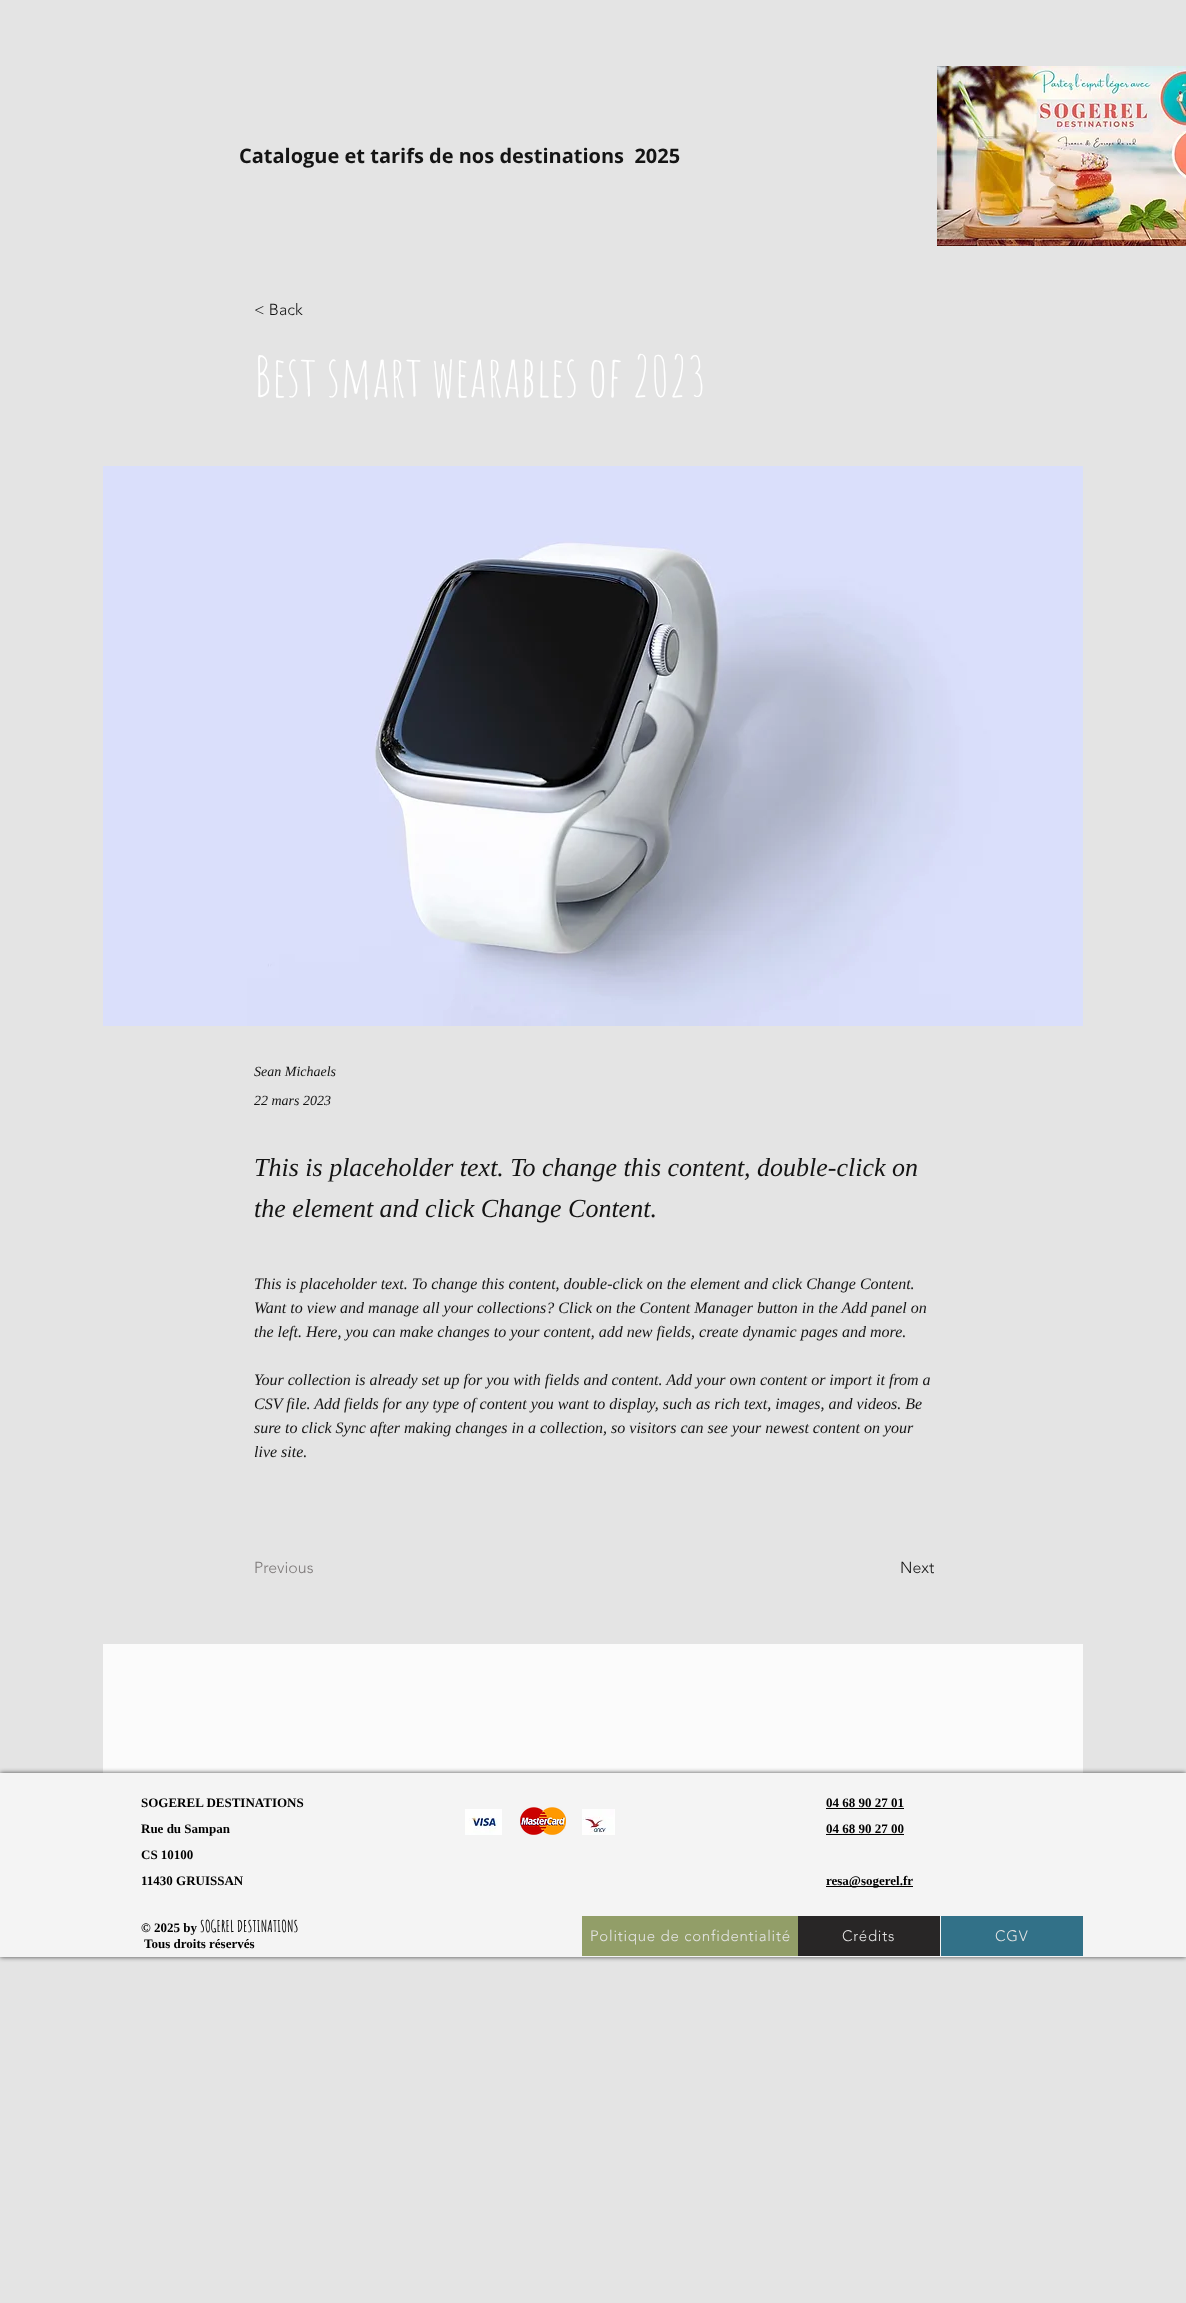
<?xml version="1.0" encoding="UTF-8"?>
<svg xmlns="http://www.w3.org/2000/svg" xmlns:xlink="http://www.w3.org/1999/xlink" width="1186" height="2303">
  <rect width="100%" height="100%" fill="#e4e4e4" />
  <image x="937" y="66" width="249" height="180" xlink:href="image1.png" />
  <image x="103" y="466" width="980" height="560" xlink:href="image2.png" />
  <rect x="103" y="1644" width="980" height="129" fill="#fbfbfb" />
  <rect y="1773" width="1186" height="184" fill="#000000" fill-opacity="0.7" filter="blur(2.5px)" />
  <rect y="1773" width="1186" height="184" fill="#f4f4f4" />
  <image x="465" y="1809" width="37" height="26" xlink:href="image3.png" />
  <image x="520" y="1807" width="46" height="28" xlink:href="image4.png" />
  <image x="582" y="1809" width="33" height="26" xlink:href="image5.png" />
  <rect x="826" y="1808" width="78" height="1" fill="#000000" />
  <rect x="826" y="1834" width="78" height="1" fill="#000000" />
  <rect x="826" y="1886" width="87" height="1" fill="#000000" />
  <rect x="582" y="1916" width="216" height="40" fill="#929e68" />
  <rect x="798" y="1916" width="142" height="40" fill="#282626" />
  <rect x="941" y="1916" width="142" height="40" fill="#327188" />
  <text x="239" y="163" style="font-family: Open Sans; font-size: 20px; font-weight: bold; fill: #141414" xml:space="preserve">Catalogue et tarifs de nos destinations  2025</text>
  <text x="254" y="315" style="font-family: 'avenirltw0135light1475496'; font-size: 16px; font-weight: 300; fill: #141414">&lt; Back</text>
  <text x="254" y="397" style="font-family: Amatic SC; font-size: 56px; fill: #ffffff">Best smart wearables of 2023</text>
  <text x="254" y="1076" style="font-family: Liberation Serif; font-size: 14px; font-style: italic; fill: #141414">Sean Michaels</text>
  <text x="254" y="1105" style="font-family: Liberation Serif; font-size: 14px; font-style: italic; fill: #141414">22 mars 2023</text>
  <text x="254" y="1176" style="font-family: Liberation Serif; font-size: 26px; font-style: italic; fill: #141414">This is placeholder text. To change this content, double-click on</text>
  <text x="254" y="1217" style="font-family: Liberation Serif; font-size: 26px; font-style: italic; fill: #141414">the element and click Change Content.</text>
  <text x="254" y="1289" style="font-family: Liberation Serif; font-size: 16px; font-style: italic; fill: #141414">This is placeholder text. To change this content, double-click on the element and click Change Content.</text>
  <text x="254" y="1313" style="font-family: Liberation Serif; font-size: 16px; font-style: italic; fill: #141414">Want to view and manage all your collections? Click on the Content Manager button in the Add panel on</text>
  <text x="254" y="1337" style="font-family: Liberation Serif; font-size: 16px; font-style: italic; fill: #141414">the left. Here, you can make changes to your content, add new fields, create dynamic pages and more.</text>
  <text x="254" y="1385" style="font-family: Liberation Serif; font-size: 16px; font-style: italic; fill: #141414">Your collection is already set up for you with fields and content. Add your own content or import it from a</text>
  <text x="254" y="1409" style="font-family: Liberation Serif; font-size: 16px; font-style: italic; fill: #141414">CSV file. Add fields for any type of content you want to display, such as rich text, images, and videos. Be</text>
  <text x="254" y="1433" style="font-family: Liberation Serif; font-size: 16px; font-style: italic; fill: #141414">sure to click Sync after making changes in a collection, so visitors can see your newest content on your</text>
  <text x="254" y="1457" style="font-family: Liberation Serif; font-size: 16px; font-style: italic; fill: #141414">live site.</text>
  <text x="254" y="1573" style="font-family: 'avenirltw0135light1475496'; font-size: 16px; font-weight: 300; fill: #7d7979">Previous</text>
  <text x="900" y="1573" style="font-family: 'avenirltw0135light1475496'; font-size: 16px; font-weight: 300; fill: #141414">Next</text>
  <text x="141" y="1807" style="font-family: Liberation Serif; font-size: 13px; font-weight: bold; fill: #000000">SOGEREL DESTINATIONS</text>
  <text x="141" y="1833" style="font-family: Liberation Serif; font-size: 13px; font-weight: bold; fill: #000000">Rue du Sampan</text>
  <text x="141" y="1859" style="font-family: Liberation Serif; font-size: 13px; font-weight: bold; fill: #000000">CS 10100</text>
  <text x="141" y="1885" style="font-family: Liberation Serif; font-size: 13px; font-weight: bold; fill: #000000">11430 GRUISSAN</text>
  <text x="826" y="1807" style="font-family: Liberation Serif; font-size: 13px; font-weight: bold; fill: #000000">04 68 90 27 01</text>
  <text x="826" y="1833" style="font-family: Liberation Serif; font-size: 13px; font-weight: bold; fill: #000000">04 68 90 27 00</text>
  <text x="826" y="1885" style="font-family: Liberation Serif; font-size: 13px; font-weight: bold; fill: #000000">resa@sogerel.fr</text>
  <text x="141" y="1932" style="font-family: Liberation Serif; font-size: 13px; font-weight: bold; fill: #000000">© 2025 by</text>
  <text x="200" y="1932" style="font-family: Amatic SC; font-size: 16px; font-weight: bold; fill: #000000">SOGEREL DESTINATIONS</text>
  <text x="144" y="1948" style="font-family: Liberation Serif; font-size: 13px; font-weight: bold; fill: #000000">Tous droits réservés</text>
  <text x="590" y="1941" style="font-family: 'avenirltw0135light1475496'; font-size: 15px; font-weight: 300; letter-spacing: 0.75px; fill: #e4e4e4">Politique de confidentialité</text>
  <text x="842" y="1941" style="font-family: 'avenirltw0135light1475496'; font-size: 15px; font-weight: 300; letter-spacing: 0.75px; fill: #e4e4e4">Crédits</text>
  <text x="995" y="1941" style="font-family: 'avenirltw0135light1475496'; font-size: 15px; font-weight: 300; letter-spacing: 0.75px; fill: #e4e4e4">CGV</text>
</svg>
